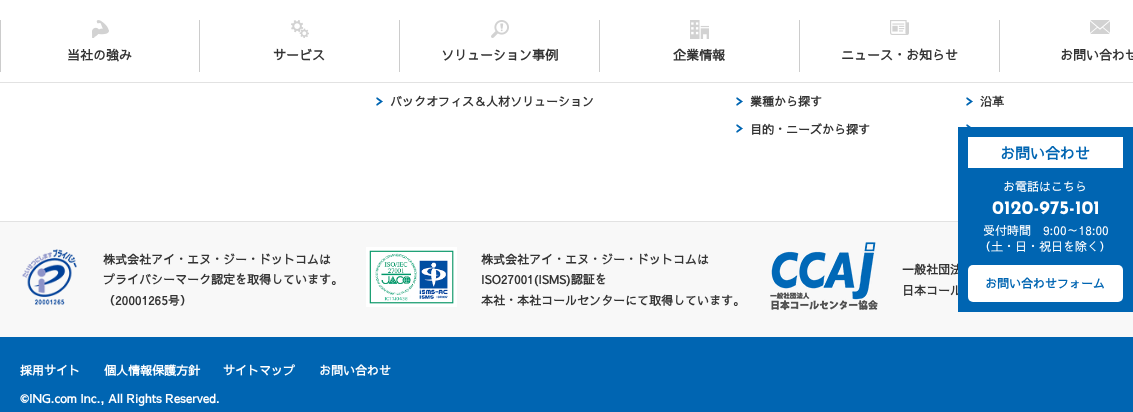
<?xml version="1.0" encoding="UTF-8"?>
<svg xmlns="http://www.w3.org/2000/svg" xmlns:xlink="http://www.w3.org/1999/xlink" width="1133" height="412">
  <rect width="100%" height="100%" fill="#ffffff" />
  <rect y="82" width="1133" height="1" fill="#e2e2e2" />
  <image x="92" y="20" width="17" height="18" xlink:href="image1.png" />
  <rect x="199" y="20" width="1" height="52" fill="#cccccc" />
  <rect y="20" width="1" height="52" fill="#cccccc" />
  <image x="291" y="20" width="18" height="18" xlink:href="image2.png" />
  <rect x="399" y="20" width="1" height="52" fill="#cccccc" />
  <image x="491" y="20" width="18" height="18" xlink:href="image3.png" />
  <rect x="599" y="20" width="1" height="52" fill="#cccccc" />
  <image x="690" y="20" width="19" height="19" xlink:href="image4.png" />
  <rect x="799" y="20" width="1" height="52" fill="#cccccc" />
  <image x="890" y="20" width="19" height="15" xlink:href="image5.png" />
  <rect x="999" y="20" width="1" height="52" fill="#cccccc" />
  <image x="1090" y="20" width="20" height="14" xlink:href="image6.png" />
  <image x="376" y="97" width="7" height="9" xlink:href="image7.png" />
  <image x="736" y="97" width="7" height="9" xlink:href="image7.png" />
  <image x="736" y="124" width="7" height="9" xlink:href="image7.png" />
  <image x="966" y="97" width="7" height="9" xlink:href="image7.png" />
  <image x="966" y="124" width="5" height="3" xlink:href="image8.png" />
  <rect y="222" width="1133" height="115" fill="#f8f8f8" />
  <rect y="221" width="958" height="1" fill="#e2e2e2" />
  <image x="22" y="249" width="55" height="56" xlink:href="image9.png" />
  <image x="366" y="247" width="91" height="60" xlink:href="image10.png" />
  <image x="770" y="242" width="108" height="68" xlink:href="image11.png" />
  <rect y="337" width="1133" height="75" fill="#0065b2" />
  <text x="67" y="60" style="font-family: Sawarabi Gothic; font-size: 13px; font-weight: bold; fill: #333333">当社の強み</text>
  <text x="273" y="60" style="font-family: Sawarabi Gothic; font-size: 13px; font-weight: bold; fill: #333333">サービス</text>
  <text x="441" y="60" style="font-family: Sawarabi Gothic; font-size: 13px; font-weight: bold; fill: #333333">ソリューション事例</text>
  <text x="673" y="60" style="font-family: Sawarabi Gothic; font-size: 13px; font-weight: bold; fill: #333333">企業情報</text>
  <text x="841" y="60" style="font-family: Sawarabi Gothic; font-size: 13px; font-weight: bold; fill: #333333">ニュース・お知らせ</text>
  <text x="1060" y="60" style="font-family: Sawarabi Gothic; font-size: 13px; font-weight: bold; fill: #333333">お問い合わせ</text>
  <text x="390" y="106" style="font-family: Sawarabi Gothic; font-size: 12px; font-weight: bold; fill: #333333">バックオフィス＆人材ソリューション</text>
  <text x="750" y="106" style="font-family: Sawarabi Gothic; font-size: 12px; font-weight: bold; fill: #333333">業種から探す</text>
  <text x="750" y="134" style="font-family: Sawarabi Gothic; font-size: 12px; font-weight: bold; fill: #333333">目的・ニーズから探す</text>
  <text x="980" y="106" style="font-family: Sawarabi Gothic; font-size: 12px; font-weight: bold; fill: #333333">沿革</text>
  <text x="103" y="264" style="font-family: Sawarabi Gothic; font-size: 12px; font-weight: bold; fill: #333333">株式会社アイ・エヌ・ジー・ドットコムは</text>
  <text x="103" y="284" style="font-family: Sawarabi Gothic; font-size: 12px; font-weight: bold; fill: #333333">プライバシーマーク認定を取得しています。</text>
  <text x="103" y="305" style="font-family: Sawarabi Gothic; font-size: 12px; font-weight: bold; fill: #333333">（20001265号）</text>
  <text x="481" y="264" style="font-family: Sawarabi Gothic; font-size: 12px; font-weight: bold; fill: #333333">株式会社アイ・エヌ・ジー・ドットコムは</text>
  <text x="481" y="284" style="font-family: Sawarabi Gothic; font-size: 12px; font-weight: bold; fill: #333333">ISO27001(ISMS)認証を</text>
  <text x="481" y="305" style="font-family: Sawarabi Gothic; font-size: 12px; font-weight: bold; fill: #333333">本社・本社コールセンターにて取得しています。</text>
  <text x="902" y="274" style="font-family: Sawarabi Gothic; font-size: 12px; font-weight: bold; fill: #333333">一般社団法</text>
  <text x="902" y="295" style="font-family: Sawarabi Gothic; font-size: 12px; font-weight: bold; fill: #333333">日本コール</text>
  <text x="20" y="375" style="font-family: Sawarabi Gothic; font-size: 12px; font-weight: bold; fill: #ffffff">採用サイト</text>
  <text x="104" y="375" style="font-family: Sawarabi Gothic; font-size: 12px; font-weight: bold; fill: #ffffff">個人情報保護方針</text>
  <text x="223" y="375" style="font-family: Sawarabi Gothic; font-size: 12px; font-weight: bold; fill: #ffffff">サイトマップ</text>
  <text x="319" y="375" style="font-family: Sawarabi Gothic; font-size: 12px; font-weight: bold; fill: #ffffff">お問い合わせ</text>
  <text x="20" y="403" style="font-family: Sawarabi Gothic; font-size: 12px; font-weight: bold; fill: #ffffff">©ING.com Inc., All Rights Reserved.</text>
  <rect x="958" y="127" width="175" height="185" fill="#0065b2" />
  <rect x="968" y="137" width="155" height="31" fill="#ffffff" />
  <text x="1000" y="159" style="font-family: Sawarabi Gothic; font-size: 15px; font-weight: bold; fill: #0065b2">お問い合わせ</text>
  <text x="1003" y="191" style="font-family: Sawarabi Gothic; font-size: 12px; fill: #ffffff">お電話はこちら</text>
  <text x="992" y="214" style="font-family: Reem Kufi; font-size: 19px; font-weight: bold; fill: #ffffff">0120-975-101</text>
  <text x="983" y="235" style="font-family: Sawarabi Gothic; font-size: 12px; fill: #ffffff">受付時間　9:00～18:00</text>
  <text x="979" y="251" style="font-family: Sawarabi Gothic; font-size: 12px; fill: #ffffff">（土・日・祝日を除く）</text>
  <rect x="968" y="265" width="155" height="37" rx="5" fill="#ffffff" />
  <text x="985" y="288" style="font-family: Sawarabi Gothic; font-size: 12px; font-weight: bold; fill: #0065b2">お問い合わせフォーム</text>
</svg>
